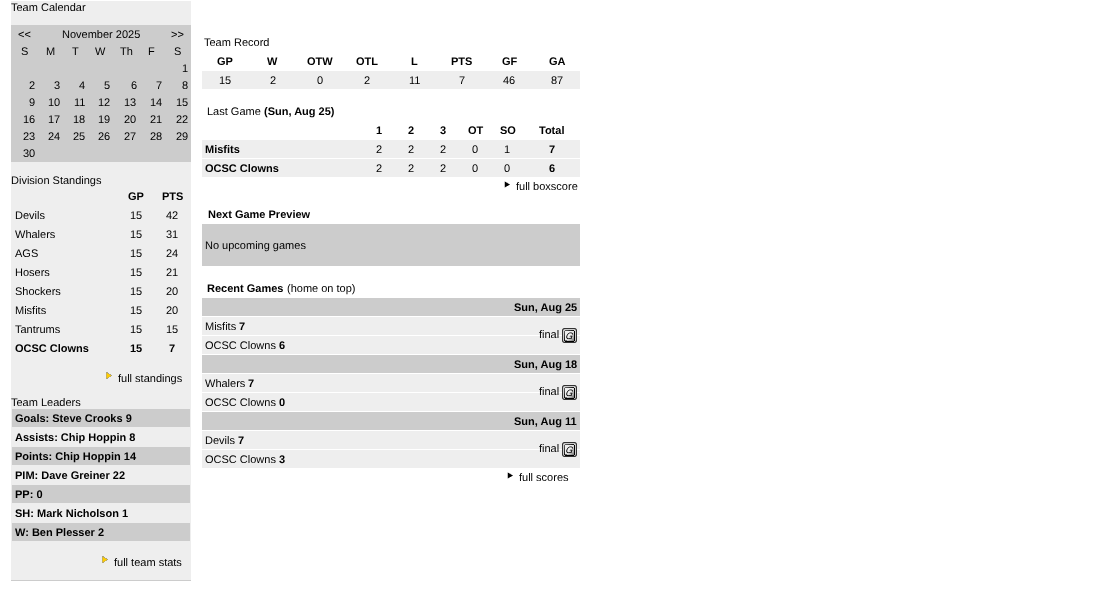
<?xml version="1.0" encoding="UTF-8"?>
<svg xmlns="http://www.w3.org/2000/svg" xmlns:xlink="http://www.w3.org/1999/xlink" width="1117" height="612">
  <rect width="100%" height="100%" fill="#ffffff" />
  <rect x="11" y="1" width="180" height="579" fill="#eeeeee" />
  <rect x="11" y="25" width="180" height="137" fill="#cccccc" />
  <image x="106" y="372" width="6" height="7" xlink:href="image1.png" />
  <rect x="12" y="409" width="178" height="18" fill="#cccccc" />
  <rect x="12" y="447" width="178" height="18" fill="#cccccc" />
  <rect x="12" y="485" width="178" height="18" fill="#cccccc" />
  <rect x="12" y="523" width="178" height="18" fill="#cccccc" />
  <image x="102" y="556" width="6" height="7" xlink:href="image1.png" />
  <rect x="11" y="580" width="180" height="1" fill="#cccccc" />
  <rect x="202" y="71" width="378" height="18" fill="#eeeeee" />
  <rect x="202" y="140" width="378" height="18" fill="#eeeeee" />
  <rect x="202" y="159" width="378" height="18" fill="#eeeeee" />
  <image x="504" y="181" width="6" height="7" xlink:href="image2.png" />
  <rect x="202" y="224" width="378" height="42" fill="#cccccc" />
  <rect x="202" y="298" width="378" height="18" fill="#cccccc" />
  <rect x="202" y="317" width="378" height="18" fill="#eeeeee" />
  <rect x="202" y="336" width="378" height="18" fill="#eeeeee" />
  <image x="562" y="328" width="15" height="15" xlink:href="image3.png" />
  <rect x="202" y="355" width="378" height="18" fill="#cccccc" />
  <rect x="202" y="374" width="378" height="18" fill="#eeeeee" />
  <rect x="202" y="393" width="378" height="18" fill="#eeeeee" />
  <image x="562" y="385" width="15" height="15" xlink:href="image3.png" />
  <rect x="202" y="412" width="378" height="18" fill="#cccccc" />
  <rect x="202" y="431" width="378" height="18" fill="#eeeeee" />
  <rect x="202" y="450" width="378" height="18" fill="#eeeeee" />
  <image x="562" y="442" width="15" height="15" xlink:href="image3.png" />
  <image x="507" y="472" width="6" height="7" xlink:href="image2.png" />
  <text x="11" y="11" style="font-family: Liberation Sans; font-size: 11px; fill: #000000">Team Calendar</text>
  <text x="18" y="38" style="font-family: Liberation Sans; font-size: 11px; fill: #000000">&lt;&lt;</text>
  <text x="62" y="38" style="font-family: Liberation Sans; font-size: 11px; fill: #000000">November 2025</text>
  <text x="171" y="38" style="font-family: Liberation Sans; font-size: 11px; fill: #000000">&gt;&gt;</text>
  <text x="21" y="55" style="font-family: Liberation Sans; font-size: 11px; fill: #000000">S</text>
  <text x="46" y="55" style="font-family: Liberation Sans; font-size: 11px; fill: #000000">M</text>
  <text x="72" y="55" style="font-family: Liberation Sans; font-size: 11px; fill: #000000">T</text>
  <text x="95" y="55" style="font-family: Liberation Sans; font-size: 11px; fill: #000000">W</text>
  <text x="120" y="55" style="font-family: Liberation Sans; font-size: 11px; fill: #000000">Th</text>
  <text x="148" y="55" style="font-family: Liberation Sans; font-size: 11px; fill: #000000">F</text>
  <text x="174" y="55" style="font-family: Liberation Sans; font-size: 11px; fill: #000000">S</text>
  <text x="182" y="72" style="font-family: Liberation Sans; font-size: 11px; fill: #000000">1</text>
  <text x="29" y="89" style="font-family: Liberation Sans; font-size: 11px; fill: #000000">2</text>
  <text x="54" y="89" style="font-family: Liberation Sans; font-size: 11px; fill: #000000">3</text>
  <text x="79" y="89" style="font-family: Liberation Sans; font-size: 11px; fill: #000000">4</text>
  <text x="104" y="89" style="font-family: Liberation Sans; font-size: 11px; fill: #000000">5</text>
  <text x="131" y="89" style="font-family: Liberation Sans; font-size: 11px; fill: #000000">6</text>
  <text x="156" y="89" style="font-family: Liberation Sans; font-size: 11px; fill: #000000">7</text>
  <text x="182" y="89" style="font-family: Liberation Sans; font-size: 11px; fill: #000000">8</text>
  <text x="29" y="106" style="font-family: Liberation Sans; font-size: 11px; fill: #000000">9</text>
  <text x="48" y="106" style="font-family: Liberation Sans; font-size: 11px; fill: #000000">10</text>
  <text x="74" y="106" style="font-family: Liberation Sans; font-size: 11px; fill: #000000">11</text>
  <text x="98" y="106" style="font-family: Liberation Sans; font-size: 11px; fill: #000000">12</text>
  <text x="124" y="106" style="font-family: Liberation Sans; font-size: 11px; fill: #000000">13</text>
  <text x="150" y="106" style="font-family: Liberation Sans; font-size: 11px; fill: #000000">14</text>
  <text x="176" y="106" style="font-family: Liberation Sans; font-size: 11px; fill: #000000">15</text>
  <text x="23" y="123" style="font-family: Liberation Sans; font-size: 11px; fill: #000000">16</text>
  <text x="48" y="123" style="font-family: Liberation Sans; font-size: 11px; fill: #000000">17</text>
  <text x="73" y="123" style="font-family: Liberation Sans; font-size: 11px; fill: #000000">18</text>
  <text x="98" y="123" style="font-family: Liberation Sans; font-size: 11px; fill: #000000">19</text>
  <text x="124" y="123" style="font-family: Liberation Sans; font-size: 11px; fill: #000000">20</text>
  <text x="150" y="123" style="font-family: Liberation Sans; font-size: 11px; fill: #000000">21</text>
  <text x="176" y="123" style="font-family: Liberation Sans; font-size: 11px; fill: #000000">22</text>
  <text x="23" y="140" style="font-family: Liberation Sans; font-size: 11px; fill: #000000">23</text>
  <text x="48" y="140" style="font-family: Liberation Sans; font-size: 11px; fill: #000000">24</text>
  <text x="73" y="140" style="font-family: Liberation Sans; font-size: 11px; fill: #000000">25</text>
  <text x="98" y="140" style="font-family: Liberation Sans; font-size: 11px; fill: #000000">26</text>
  <text x="124" y="140" style="font-family: Liberation Sans; font-size: 11px; fill: #000000">27</text>
  <text x="150" y="140" style="font-family: Liberation Sans; font-size: 11px; fill: #000000">28</text>
  <text x="176" y="140" style="font-family: Liberation Sans; font-size: 11px; fill: #000000">29</text>
  <text x="23" y="157" style="font-family: Liberation Sans; font-size: 11px; fill: #000000">30</text>
  <text x="11" y="184" style="font-family: Liberation Sans; font-size: 11px; fill: #000000">Division Standings</text>
  <text x="128" y="200" style="font-family: Liberation Sans; font-size: 11px; font-weight: bold; fill: #000000">GP</text>
  <text x="162" y="200" style="font-family: Liberation Sans; font-size: 11px; font-weight: bold; fill: #000000">PTS</text>
  <text x="15" y="219" style="font-family: Liberation Sans; font-size: 11px; fill: #000000">Devils</text>
  <text x="130" y="219" style="font-family: Liberation Sans; font-size: 11px; fill: #000000">15</text>
  <text x="166" y="219" style="font-family: Liberation Sans; font-size: 11px; fill: #000000">42</text>
  <text x="15" y="238" style="font-family: Liberation Sans; font-size: 11px; fill: #000000">Whalers</text>
  <text x="130" y="238" style="font-family: Liberation Sans; font-size: 11px; fill: #000000">15</text>
  <text x="166" y="238" style="font-family: Liberation Sans; font-size: 11px; fill: #000000">31</text>
  <text x="15" y="257" style="font-family: Liberation Sans; font-size: 11px; fill: #000000">AGS</text>
  <text x="130" y="257" style="font-family: Liberation Sans; font-size: 11px; fill: #000000">15</text>
  <text x="166" y="257" style="font-family: Liberation Sans; font-size: 11px; fill: #000000">24</text>
  <text x="15" y="276" style="font-family: Liberation Sans; font-size: 11px; fill: #000000">Hosers</text>
  <text x="130" y="276" style="font-family: Liberation Sans; font-size: 11px; fill: #000000">15</text>
  <text x="166" y="276" style="font-family: Liberation Sans; font-size: 11px; fill: #000000">21</text>
  <text x="15" y="295" style="font-family: Liberation Sans; font-size: 11px; fill: #000000">Shockers</text>
  <text x="130" y="295" style="font-family: Liberation Sans; font-size: 11px; fill: #000000">15</text>
  <text x="166" y="295" style="font-family: Liberation Sans; font-size: 11px; fill: #000000">20</text>
  <text x="15" y="314" style="font-family: Liberation Sans; font-size: 11px; fill: #000000">Misfits</text>
  <text x="130" y="314" style="font-family: Liberation Sans; font-size: 11px; fill: #000000">15</text>
  <text x="166" y="314" style="font-family: Liberation Sans; font-size: 11px; fill: #000000">20</text>
  <text x="15" y="333" style="font-family: Liberation Sans; font-size: 11px; fill: #000000">Tantrums</text>
  <text x="130" y="333" style="font-family: Liberation Sans; font-size: 11px; fill: #000000">15</text>
  <text x="166" y="333" style="font-family: Liberation Sans; font-size: 11px; fill: #000000">15</text>
  <text x="15" y="352" style="font-family: Liberation Sans; font-size: 11px; font-weight: bold; fill: #000000">OCSC Clowns</text>
  <text x="130" y="352" style="font-family: Liberation Sans; font-size: 11px; font-weight: bold; fill: #000000">15</text>
  <text x="169" y="352" style="font-family: Liberation Sans; font-size: 11px; font-weight: bold; fill: #000000">7</text>
  <text x="118" y="382" style="font-family: Liberation Sans; font-size: 11px; fill: #000000">full standings</text>
  <text x="11" y="406" style="font-family: Liberation Sans; font-size: 11px; fill: #000000">Team Leaders</text>
  <text x="15" y="422" style="font-family: Liberation Sans; font-size: 11px; font-weight: bold; fill: #000000">Goals: Steve Crooks 9</text>
  <text x="15" y="441" style="font-family: Liberation Sans; font-size: 11px; font-weight: bold; fill: #000000">Assists: Chip Hoppin 8</text>
  <text x="15" y="460" style="font-family: Liberation Sans; font-size: 11px; font-weight: bold; fill: #000000">Points: Chip Hoppin 14</text>
  <text x="15" y="479" style="font-family: Liberation Sans; font-size: 11px; font-weight: bold; fill: #000000">PIM: Dave Greiner 22</text>
  <text x="15" y="498" style="font-family: Liberation Sans; font-size: 11px; font-weight: bold; fill: #000000">PP: 0</text>
  <text x="15" y="517" style="font-family: Liberation Sans; font-size: 11px; font-weight: bold; fill: #000000">SH: Mark Nicholson 1</text>
  <text x="15" y="536" style="font-family: Liberation Sans; font-size: 11px; font-weight: bold; fill: #000000">W: Ben Plesser 2</text>
  <text x="114" y="566" style="font-family: Liberation Sans; font-size: 11px; fill: #000000">full team stats</text>
  <text x="204" y="46" style="font-family: Liberation Sans; font-size: 11px; fill: #000000">Team Record</text>
  <text x="217" y="65" style="font-family: Liberation Sans; font-size: 11px; font-weight: bold; fill: #000000">GP</text>
  <text x="267" y="65" style="font-family: Liberation Sans; font-size: 11px; font-weight: bold; fill: #000000">W</text>
  <text x="307" y="65" style="font-family: Liberation Sans; font-size: 11px; font-weight: bold; fill: #000000">OTW</text>
  <text x="356" y="65" style="font-family: Liberation Sans; font-size: 11px; font-weight: bold; fill: #000000">OTL</text>
  <text x="411" y="65" style="font-family: Liberation Sans; font-size: 11px; font-weight: bold; fill: #000000">L</text>
  <text x="451" y="65" style="font-family: Liberation Sans; font-size: 11px; font-weight: bold; fill: #000000">PTS</text>
  <text x="502" y="65" style="font-family: Liberation Sans; font-size: 11px; font-weight: bold; fill: #000000">GF</text>
  <text x="549" y="65" style="font-family: Liberation Sans; font-size: 11px; font-weight: bold; fill: #000000">GA</text>
  <text x="219" y="84" style="font-family: Liberation Sans; font-size: 11px; fill: #000000">15</text>
  <text x="270" y="84" style="font-family: Liberation Sans; font-size: 11px; fill: #000000">2</text>
  <text x="317" y="84" style="font-family: Liberation Sans; font-size: 11px; fill: #000000">0</text>
  <text x="364" y="84" style="font-family: Liberation Sans; font-size: 11px; fill: #000000">2</text>
  <text x="409" y="84" style="font-family: Liberation Sans; font-size: 11px; fill: #000000">11</text>
  <text x="459" y="84" style="font-family: Liberation Sans; font-size: 11px; fill: #000000">7</text>
  <text x="503" y="84" style="font-family: Liberation Sans; font-size: 11px; fill: #000000">46</text>
  <text x="551" y="84" style="font-family: Liberation Sans; font-size: 11px; fill: #000000">87</text>
  <text x="207" y="115" style="font-family: Liberation Sans; font-size: 11px; fill: #000000">Last Game</text>
  <text x="264" y="115" style="font-family: Liberation Sans; font-size: 11px; font-weight: bold; fill: #000000">(Sun, Aug 25)</text>
  <text x="376" y="134" style="font-family: Liberation Sans; font-size: 11px; font-weight: bold; fill: #000000">1</text>
  <text x="408" y="134" style="font-family: Liberation Sans; font-size: 11px; font-weight: bold; fill: #000000">2</text>
  <text x="440" y="134" style="font-family: Liberation Sans; font-size: 11px; font-weight: bold; fill: #000000">3</text>
  <text x="468" y="134" style="font-family: Liberation Sans; font-size: 11px; font-weight: bold; fill: #000000">OT</text>
  <text x="500" y="134" style="font-family: Liberation Sans; font-size: 11px; font-weight: bold; fill: #000000">SO</text>
  <text x="539" y="134" style="font-family: Liberation Sans; font-size: 11px; font-weight: bold; fill: #000000">Total</text>
  <text x="205" y="153" style="font-family: Liberation Sans; font-size: 11px; font-weight: bold; fill: #000000">Misfits</text>
  <text x="376" y="153" style="font-family: Liberation Sans; font-size: 11px; fill: #000000">2</text>
  <text x="408" y="153" style="font-family: Liberation Sans; font-size: 11px; fill: #000000">2</text>
  <text x="440" y="153" style="font-family: Liberation Sans; font-size: 11px; fill: #000000">2</text>
  <text x="472" y="153" style="font-family: Liberation Sans; font-size: 11px; fill: #000000">0</text>
  <text x="504" y="153" style="font-family: Liberation Sans; font-size: 11px; fill: #000000">1</text>
  <text x="549" y="153" style="font-family: Liberation Sans; font-size: 11px; font-weight: bold; fill: #000000">7</text>
  <text x="205" y="172" style="font-family: Liberation Sans; font-size: 11px; font-weight: bold; fill: #000000">OCSC Clowns</text>
  <text x="376" y="172" style="font-family: Liberation Sans; font-size: 11px; fill: #000000">2</text>
  <text x="408" y="172" style="font-family: Liberation Sans; font-size: 11px; fill: #000000">2</text>
  <text x="440" y="172" style="font-family: Liberation Sans; font-size: 11px; fill: #000000">2</text>
  <text x="472" y="172" style="font-family: Liberation Sans; font-size: 11px; fill: #000000">0</text>
  <text x="504" y="172" style="font-family: Liberation Sans; font-size: 11px; fill: #000000">0</text>
  <text x="549" y="172" style="font-family: Liberation Sans; font-size: 11px; font-weight: bold; fill: #000000">6</text>
  <text x="516" y="190" style="font-family: Liberation Sans; font-size: 11px; fill: #000000">full boxscore</text>
  <text x="208" y="218" style="font-family: Liberation Sans; font-size: 11px; font-weight: bold; fill: #000000">Next Game Preview</text>
  <text x="205" y="249" style="font-family: Liberation Sans; font-size: 11px; fill: #000000">No upcoming games</text>
  <text x="207" y="292" style="font-family: Liberation Sans; font-size: 11px; font-weight: bold; fill: #000000">Recent Games</text>
  <text x="287" y="292" style="font-family: Liberation Sans; font-size: 11px; fill: #000000">(home on top)</text>
  <text x="514" y="311" style="font-family: Liberation Sans; font-size: 11px; font-weight: bold; fill: #000000">Sun, Aug 25</text>
  <text x="205" y="330" style="font-family: Liberation Sans; font-size: 11px; fill: #000000">Misfits</text>
  <text x="239" y="330" style="font-family: Liberation Sans; font-size: 11px; font-weight: bold; fill: #000000">7</text>
  <text x="539" y="338" style="font-family: Liberation Sans; font-size: 11px; fill: #000000">final</text>
  <text x="205" y="349" style="font-family: Liberation Sans; font-size: 11px; fill: #000000">OCSC Clowns</text>
  <text x="279" y="349" style="font-family: Liberation Sans; font-size: 11px; font-weight: bold; fill: #000000">6</text>
  <text x="514" y="368" style="font-family: Liberation Sans; font-size: 11px; font-weight: bold; fill: #000000">Sun, Aug 18</text>
  <text x="205" y="387" style="font-family: Liberation Sans; font-size: 11px; fill: #000000">Whalers</text>
  <text x="248" y="387" style="font-family: Liberation Sans; font-size: 11px; font-weight: bold; fill: #000000">7</text>
  <text x="539" y="395" style="font-family: Liberation Sans; font-size: 11px; fill: #000000">final</text>
  <text x="205" y="406" style="font-family: Liberation Sans; font-size: 11px; fill: #000000">OCSC Clowns</text>
  <text x="279" y="406" style="font-family: Liberation Sans; font-size: 11px; font-weight: bold; fill: #000000">0</text>
  <text x="514" y="425" style="font-family: Liberation Sans; font-size: 11px; font-weight: bold; fill: #000000">Sun, Aug 11</text>
  <text x="205" y="444" style="font-family: Liberation Sans; font-size: 11px; fill: #000000">Devils</text>
  <text x="238" y="444" style="font-family: Liberation Sans; font-size: 11px; font-weight: bold; fill: #000000">7</text>
  <text x="539" y="452" style="font-family: Liberation Sans; font-size: 11px; fill: #000000">final</text>
  <text x="205" y="463" style="font-family: Liberation Sans; font-size: 11px; fill: #000000">OCSC Clowns</text>
  <text x="279" y="463" style="font-family: Liberation Sans; font-size: 11px; font-weight: bold; fill: #000000">3</text>
  <text x="519" y="481" style="font-family: Liberation Sans; font-size: 11px; fill: #000000">full scores</text>
</svg>
